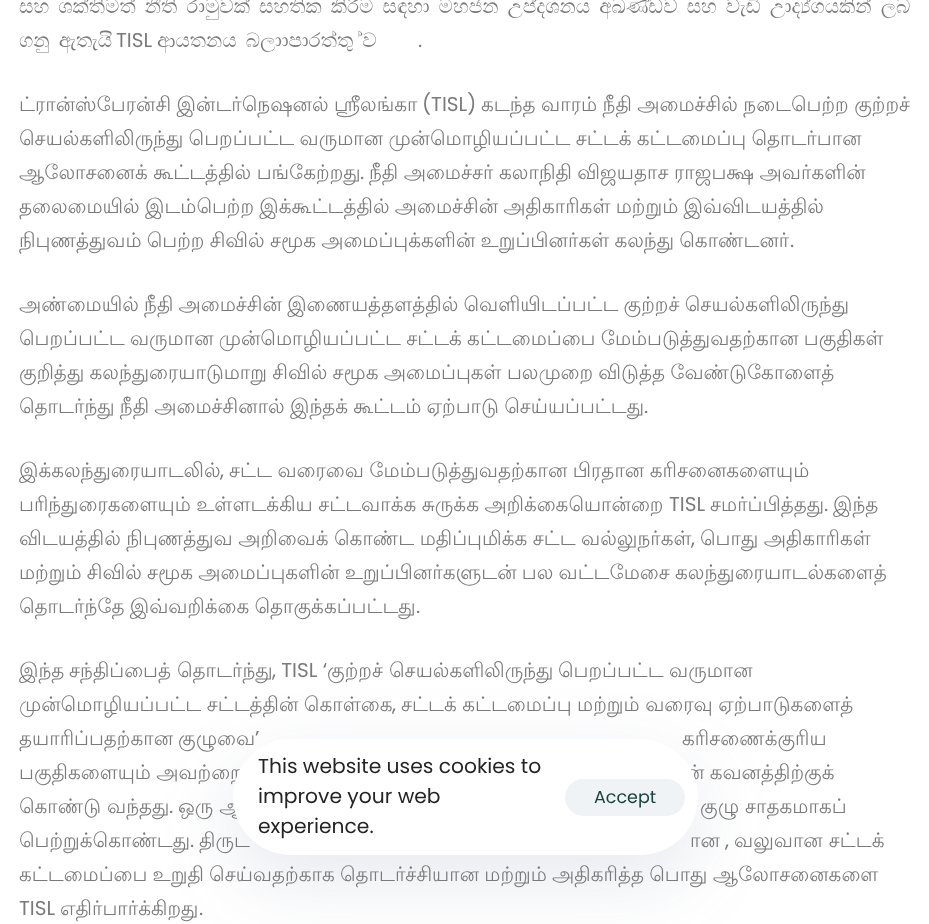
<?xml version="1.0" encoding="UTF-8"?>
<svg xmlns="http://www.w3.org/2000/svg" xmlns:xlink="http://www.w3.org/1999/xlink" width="929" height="924">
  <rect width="100%" height="100%" fill="#ffffff" />
  <rect x="233" y="764" width="465" height="116" rx="58" fill="#5c6b95" fill-opacity="0.15" filter="blur(37.5px)" />
  <text x="19" y="13" word-spacing="-0.9" style="font-family: FreeSerif; font-size: 20px; fill: #7a7a7a">සහ ශක්තිමත් නීති රාමුවක් සහතික කිරීම සඳහා මහජන උපදේශනය අඛණ්ඩව සහ වැඩි උද්‍යෝගයකින් ලබ</text>
  <text x="19" y="47" word-spacing="-0.9" style="font-family: FreeSerif; font-size: 20px; fill: #7a7a7a">ගනු ඇතැයි</text>
  <text x="116" y="47" style="font-family: Poppins; font-size: 20px; fill: #7a7a7a">TISL</text>
  <text x="157" y="47" word-spacing="-0.9" style="font-family: FreeSerif; font-size: 20px; fill: #7a7a7a">ආයතනය බලාපොරොත්තු වේ</text>
  <text x="418" y="47" style="font-family: Poppins; font-size: 20px; fill: #7a7a7a">.</text>
  <text x="19" y="111" word-spacing="-0.5" style="font-family: Lohit Tamil; font-size: 20px; fill: #7a7a7a">ட்ரான்ஸ்பேரன்சி இன்டர்நெஷனல் ஸ்ரீலங்கா</text>
  <text x="422" y="111" style="font-family: Poppins; font-size: 20px; fill: #7a7a7a">(TISL)</text>
  <text x="481" y="111" word-spacing="-0.5" style="font-family: Lohit Tamil; font-size: 20px; fill: #7a7a7a">கடந்த வாரம் நீதி அமைச்சில் நடைபெற்ற குற்றச்</text>
  <text x="19" y="145" word-spacing="-0.75" style="font-family: Lohit Tamil; font-size: 20px; fill: #7a7a7a">செயல்களிலிருந்து பெறப்பட்ட வருமான முன்மொழியப்பட்ட சட்டக் கட்டமைப்பு தொடர்பான</text>
  <text x="19" y="179" word-spacing="-0.5" style="font-family: Lohit Tamil; font-size: 20px; fill: #7a7a7a">ஆலோசனைக் கூட்டத்தில் பங்கேற்றது</text>
  <text x="360" y="179" style="font-family: Poppins; font-size: 20px; fill: #7a7a7a">.</text>
  <text x="369" y="179" word-spacing="-0.5" style="font-family: Lohit Tamil; font-size: 20px; fill: #7a7a7a">நீதி அமைச்சர் கலாநிதி விஜயதாச ராஜபக்ஷ அவர்களின்</text>
  <text x="19" y="213" word-spacing="-0.75" style="font-family: Lohit Tamil; font-size: 20px; fill: #7a7a7a">தலைமையில் இடம்பெற்ற இக்கூட்டத்தில் அமைச்சின் அதிகாரிகள் மற்றும் இவ்விடயத்தில்</text>
  <text x="19" y="247" word-spacing="-0.75" style="font-family: Lohit Tamil; font-size: 20px; fill: #7a7a7a">நிபுணத்துவம் பெற்ற சிவில் சமூக அமைப்புக்களின் உறுப்பினர்கள் கலந்து கொண்டனர்</text>
  <text x="790" y="247" style="font-family: Poppins; font-size: 20px; fill: #7a7a7a">.</text>
  <text x="19" y="311" word-spacing="-0.75" style="font-family: Lohit Tamil; font-size: 20px; fill: #7a7a7a">அண்மையில் நீதி அமைச்சின் இணையத்தளத்தில் வெளியிடப்பட்ட குற்றச் செயல்களிலிருந்து</text>
  <text x="19" y="345" word-spacing="-0.75" style="font-family: Lohit Tamil; font-size: 20px; fill: #7a7a7a">பெறப்பட்ட வருமான முன்மொழியப்பட்ட சட்டக் கட்டமைப்பை மேம்படுத்துவதற்கான பகுதிகள்</text>
  <text x="19" y="379" word-spacing="-0.75" style="font-family: Lohit Tamil; font-size: 20px; fill: #7a7a7a">குறித்து கலந்துரையாடுமாறு சிவில் சமூக அமைப்புகள் பலமுறை விடுத்த வேண்டுகோளைத்</text>
  <text x="19" y="413" word-spacing="-0.75" style="font-family: Lohit Tamil; font-size: 20px; fill: #7a7a7a">தொடர்ந்து நீதி அமைச்சினால் இந்தக் கூட்டம் ஏற்பாடு செய்யப்பட்டது</text>
  <text x="644" y="413" style="font-family: Poppins; font-size: 20px; fill: #7a7a7a">.</text>
  <text x="19" y="477" style="font-family: Lohit Tamil; font-size: 20px; fill: #7a7a7a">இக்கலந்துரையாடலில்</text>
  <text x="220" y="477" style="font-family: Poppins; font-size: 20px; fill: #7a7a7a">,</text>
  <text x="229" y="477" word-spacing="-0.5" style="font-family: Lohit Tamil; font-size: 20px; fill: #7a7a7a">சட்ட வரைவை மேம்படுத்துவதற்கான பிரதான கரிசனைகளையும்</text>
  <text x="19" y="511" word-spacing="-0.5" style="font-family: Lohit Tamil; font-size: 20px; fill: #7a7a7a">பரிந்துரைகளையும் உள்ளடக்கிய சட்டவாக்க சுருக்க அறிக்கையொன்றை</text>
  <text x="669" y="511" style="font-family: Poppins; font-size: 20px; fill: #7a7a7a">TISL</text>
  <text x="710" y="511" style="font-family: Lohit Tamil; font-size: 20px; fill: #7a7a7a">சமர்ப்பித்தது</text>
  <text x="824" y="511" style="font-family: Poppins; font-size: 20px; fill: #7a7a7a">.</text>
  <text x="833" y="511" style="font-family: Lohit Tamil; font-size: 20px; fill: #7a7a7a">இந்த</text>
  <text x="19" y="545" word-spacing="-0.5" style="font-family: Lohit Tamil; font-size: 20px; fill: #7a7a7a">விடயத்தில் நிபுணத்துவ அறிவைக் கொண்ட மதிப்புமிக்க சட்ட வல்லுநர்கள்</text>
  <text x="691" y="545" style="font-family: Poppins; font-size: 20px; fill: #7a7a7a">,</text>
  <text x="700" y="545" word-spacing="-0.5" style="font-family: Lohit Tamil; font-size: 20px; fill: #7a7a7a">பொது அதிகாரிகள்</text>
  <text x="19" y="579" word-spacing="-0.75" style="font-family: Lohit Tamil; font-size: 20px; fill: #7a7a7a">மற்றும் சிவில் சமூக அமைப்புகளின் உறுப்பினர்களுடன் பல வட்டமேசை கலந்துரையாடல்களைத்</text>
  <text x="19" y="613" word-spacing="-0.75" style="font-family: Lohit Tamil; font-size: 20px; fill: #7a7a7a">தொடர்ந்தே இவ்வறிக்கை தொகுக்கப்பட்டது</text>
  <text x="416" y="613" style="font-family: Poppins; font-size: 20px; fill: #7a7a7a">.</text>
  <text x="19" y="677" style="font-family: Lohit Tamil; font-size: 20px; fill: #7a7a7a">இந்த</text>
  <text x="69" y="677" style="font-family: Lohit Tamil; font-size: 20px; fill: #7a7a7a">சந்திப்பைத்</text>
  <text x="177" y="677" style="font-family: Lohit Tamil; font-size: 20px; fill: #7a7a7a">தொடர்ந்து</text>
  <text x="272" y="677" style="font-family: Poppins; font-size: 20px; fill: #7a7a7a">, TISL ‘</text>
  <text x="327" y="677" style="font-family: Lohit Tamil; font-size: 20px; fill: #7a7a7a">குற்றச்</text>
  <text x="389" y="677" style="font-family: Lohit Tamil; font-size: 20px; fill: #7a7a7a">செயல்களிலிருந்து</text>
  <text x="558" y="677" style="font-family: Lohit Tamil; font-size: 20px; fill: #7a7a7a">பெறப்பட்ட</text>
  <text x="669" y="677" style="font-family: Lohit Tamil; font-size: 20px; fill: #7a7a7a">வருமான</text>
  <text x="19" y="711" word-spacing="-0.5" style="font-family: Lohit Tamil; font-size: 20px; fill: #7a7a7a">முன்மொழியப்பட்ட சட்டத்தின் கொள்கை</text>
  <text x="392" y="711" style="font-family: Poppins; font-size: 20px; fill: #7a7a7a">,</text>
  <text x="401" y="711" word-spacing="-0.5" style="font-family: Lohit Tamil; font-size: 20px; fill: #7a7a7a">சட்டக் கட்டமைப்பு மற்றும் வரைவு ஏற்பாடுகளைத்</text>
  <text x="19" y="745" word-spacing="-1" style="font-family: Lohit Tamil; font-size: 20px; fill: #7a7a7a">தயாரிப்பதற்கான குழுவை</text>
  <text x="255" y="745" style="font-family: Poppins; font-size: 20px; fill: #7a7a7a">’</text>
  <text x="682" y="745" word-spacing="-1" style="font-family: Lohit Tamil; font-size: 20px; fill: #7a7a7a">கரிசணைக்குரிய</text>
  <text x="19" y="779" word-spacing="-0.75" style="font-family: Lohit Tamil; font-size: 20px; fill: #7a7a7a">பகுதிகளையும் அவற்றை</text>
  <text x="685" y="779" word-spacing="-0.75" style="font-family: Lohit Tamil; font-size: 20px; fill: #7a7a7a">ன் கவனத்திற்குக்</text>
  <text x="19" y="813" style="font-family: Lohit Tamil; font-size: 20px; fill: #7a7a7a">கொண்டு வந்தது</text>
  <text x="169" y="813" style="font-family: Poppins; font-size: 20px; fill: #7a7a7a">.</text>
  <text x="178" y="813" style="font-family: Lohit Tamil; font-size: 20px; fill: #7a7a7a">ஒரு ஆ</text>
  <text x="700" y="813" style="font-family: Lohit Tamil; font-size: 20px; fill: #7a7a7a">குழு சாதகமாகப்</text>
  <text x="19" y="847" style="font-family: Lohit Tamil; font-size: 20px; fill: #7a7a7a">பெற்றுக்கொண்டது</text>
  <text x="190" y="847" style="font-family: Poppins; font-size: 20px; fill: #7a7a7a">.</text>
  <text x="199" y="847" style="font-family: Lohit Tamil; font-size: 20px; fill: #7a7a7a">திருட</text>
  <text x="690" y="847" style="font-family: Lohit Tamil; font-size: 20px; fill: #7a7a7a">ான</text>
  <text x="725" y="847" style="font-family: Poppins; font-size: 20px; fill: #7a7a7a">,</text>
  <text x="734" y="847" style="font-family: Lohit Tamil; font-size: 20px; fill: #7a7a7a">வலுவான சட்டக்</text>
  <text x="19" y="881" word-spacing="-0.75" style="font-family: Lohit Tamil; font-size: 20px; fill: #7a7a7a">கட்டமைப்பை உறுதி செய்வதற்காக தொடர்ச்சியான மற்றும் அதிகரித்த பொது ஆலோசனைகளை</text>
  <text x="19" y="915" style="font-family: Poppins; font-size: 20px; fill: #7a7a7a">TISL</text>
  <text x="60" y="915" style="font-family: Lohit Tamil; font-size: 20px; fill: #7a7a7a">எதிர்பார்க்கிறது</text>
  <text x="199" y="915" style="font-family: Poppins; font-size: 20px; fill: #7a7a7a">.</text>
  <rect x="233" y="739" width="465" height="116" rx="58" fill="#ffffff" />
  <text x="258" y="773" style="font-family: Poppins; font-size: 20.25px; fill: #242424">This website uses cookies to</text>
  <text x="258" y="803" style="font-family: Poppins; font-size: 20.25px; fill: #242424">improve your web</text>
  <text x="258" y="833" style="font-family: Poppins; font-size: 20.25px; fill: #242424">experience.</text>
  <rect x="565" y="779" width="120" height="37" rx="18.5" fill="#eff3f5" />
  <text x="594" y="803" style="font-family: Poppins; font-size: 17.5px; fill: #184341">Accept</text>
</svg>
